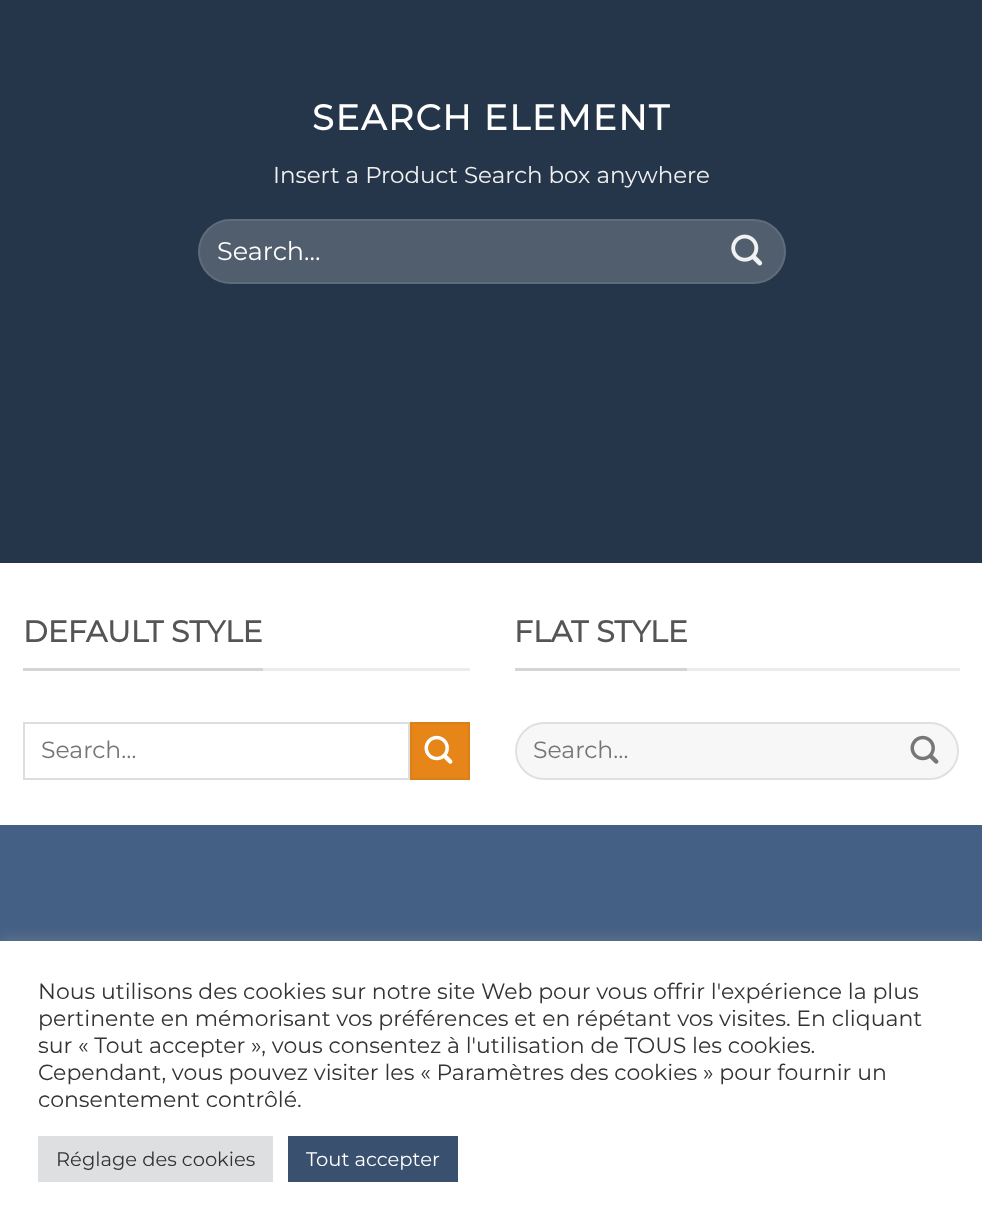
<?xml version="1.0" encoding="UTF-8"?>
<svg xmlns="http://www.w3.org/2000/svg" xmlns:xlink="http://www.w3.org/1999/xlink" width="982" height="1226">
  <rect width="100%" height="100%" fill="#ffffff" />
  <rect width="982" height="563" fill="#26364a" />
  <rect x="198" y="219" width="588" height="65" rx="32.5" fill="#515e6e" />
  <rect x="199" y="220" width="586" height="63" rx="31.5" fill="none" stroke="#ffffff" stroke-opacity="0.09" stroke-width="2" />
  <image x="731" y="234" width="32" height="32" xlink:href="image1.png" />
  <rect x="263" y="668" width="207" height="3" fill="#ececec" />
  <rect x="23" y="668" width="240" height="3" fill="#d4d4d4" />
  <rect x="24" y="723" width="385" height="56" fill="none" stroke="#dddddd" stroke-width="2" />
  <rect x="411" y="723" width="58" height="56" fill="#e68618" stroke="#db7f17" stroke-width="2" />
  <image x="424" y="735" width="29" height="29" xlink:href="image2.png" />
  <rect x="687" y="668" width="273" height="3" fill="#ececec" />
  <rect x="515" y="668" width="172" height="3" fill="#d4d4d4" />
  <rect x="515" y="722" width="444" height="58" rx="29" fill="#f7f7f7" />
  <rect x="516" y="723" width="442" height="56" rx="28" fill="none" stroke="#000000" stroke-opacity="0.09" stroke-width="2" />
  <image x="910" y="735" width="29" height="29" xlink:href="image3.png" />
  <rect y="825" width="982" height="116" fill="#446084" />
  <rect y="939" width="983" height="287" fill="#acabab" fill-opacity="0.3" filter="blur(7.5px)" />
  <rect y="941" width="982" height="285" fill="#ffffff" />
  <rect x="38" y="1136" width="235" height="46" fill="#dedfe0" />
  <rect x="288" y="1136" width="170" height="46" fill="#39506e" />
  <text x="312" y="130" style="font-family: Montserrat; font-size: 35.4px; font-weight: bold; letter-spacing: 1.75px; fill: #ffffff">SEARCH ELEMENT</text>
  <text x="273" y="183" style="font-family: Montserrat; font-size: 23px; font-weight: 100; fill: #f1f1f1">Insert a Product Search box anywhere</text>
  <text x="217" y="260" style="font-family: Montserrat; font-size: 25.5px; font-weight: 100; fill: #ffffff">Search…</text>
  <text x="23" y="642" style="font-family: Montserrat; font-size: 30px; font-weight: bold; fill: #555555">DEFAULT STYLE</text>
  <text x="41" y="758" style="font-family: Montserrat; font-size: 23.5px; font-weight: 100; fill: #757575">Search…</text>
  <text x="514" y="642" style="font-family: Montserrat; font-size: 30px; font-weight: bold; fill: #555555">FLAT STYLE</text>
  <text x="533" y="758" style="font-family: Montserrat; font-size: 23.5px; font-weight: 100; fill: #757575">Search…</text>
  <text x="38" y="999" style="font-family: Montserrat; font-size: 22px; font-weight: 100; fill: #333333">Nous utilisons des cookies sur notre site Web pour vous offrir l'expérience la plus</text>
  <text x="38" y="1026" style="font-family: Montserrat; font-size: 22px; font-weight: 100; fill: #333333">pertinente en mémorisant vos préférences et en répétant vos visites. En cliquant</text>
  <text x="38" y="1053" style="font-family: Montserrat; font-size: 22px; font-weight: 100; fill: #333333">sur « Tout accepter », vous consentez à l'utilisation de TOUS les cookies.</text>
  <text x="38" y="1080" style="font-family: Montserrat; font-size: 22px; font-weight: 100; fill: #333333">Cependant, vous pouvez visiter les « Paramètres des cookies » pour fournir un</text>
  <text x="38" y="1107" style="font-family: Montserrat; font-size: 22px; font-weight: 100; fill: #333333">consentement contrôlé.</text>
  <text x="56" y="1166" style="font-family: Montserrat; font-size: 19.5px; font-weight: 100; fill: #333333">Réglage des cookies</text>
  <text x="306" y="1166" style="font-family: Montserrat; font-size: 19.5px; font-weight: 100; fill: #ffffff">Tout accepter</text>
</svg>
